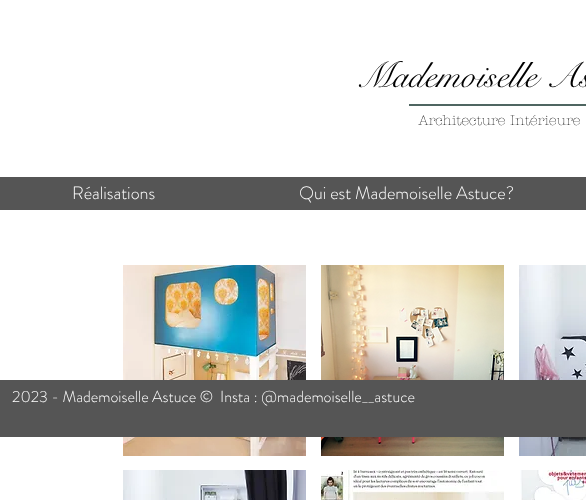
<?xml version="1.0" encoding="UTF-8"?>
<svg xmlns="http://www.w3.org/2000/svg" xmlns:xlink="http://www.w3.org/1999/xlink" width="586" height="500">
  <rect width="100%" height="100%" fill="#ffffff" />
  <rect x="409" y="104" width="177" height="2" fill="#4f6661" />
  <rect y="177" width="586" height="33" fill="#555555" />
  <image x="123" y="265" width="183" height="191" xlink:href="image1.png" />
  <image x="321" y="265" width="183" height="191" xlink:href="image2.png" />
  <image x="519" y="265" width="67" height="191" xlink:href="image3.png" />
  <image x="123" y="470" width="183" height="30" xlink:href="image4.png" />
  <image x="321" y="470" width="183" height="30" xlink:href="image5.png" />
  <image x="520" y="470" width="66" height="30" xlink:href="image6.png" />
  <rect y="380" width="586" height="57" fill="#555555" />
  <text x="357" y="87" style="font-family: 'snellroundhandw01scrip'; font-size: 36px; fill: #000000">Mademoiselle As</text>
  <text x="418" y="125" style="font-family: 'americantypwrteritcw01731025'; font-size: 14px; font-weight: 300; fill: #000000">Architecture Intérieure</text>
  <text x="72" y="199" style="font-family: 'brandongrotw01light'; font-size: 18px; font-weight: 300; fill: #ffffff">Réalisations</text>
  <text x="299" y="199" style="font-family: 'brandongrotw01light'; font-size: 18px; font-weight: 300; fill: #ffffff">Qui est Mademoiselle Astuce?</text>
  <text x="12" y="402" style="font-family: 'brandongrotw01light'; font-size: 16px; font-weight: 300; fill: #ffffff" xml:space="preserve">2023 - Mademoiselle Astuce ©  Insta : @mademoiselle__astuce</text>
</svg>
